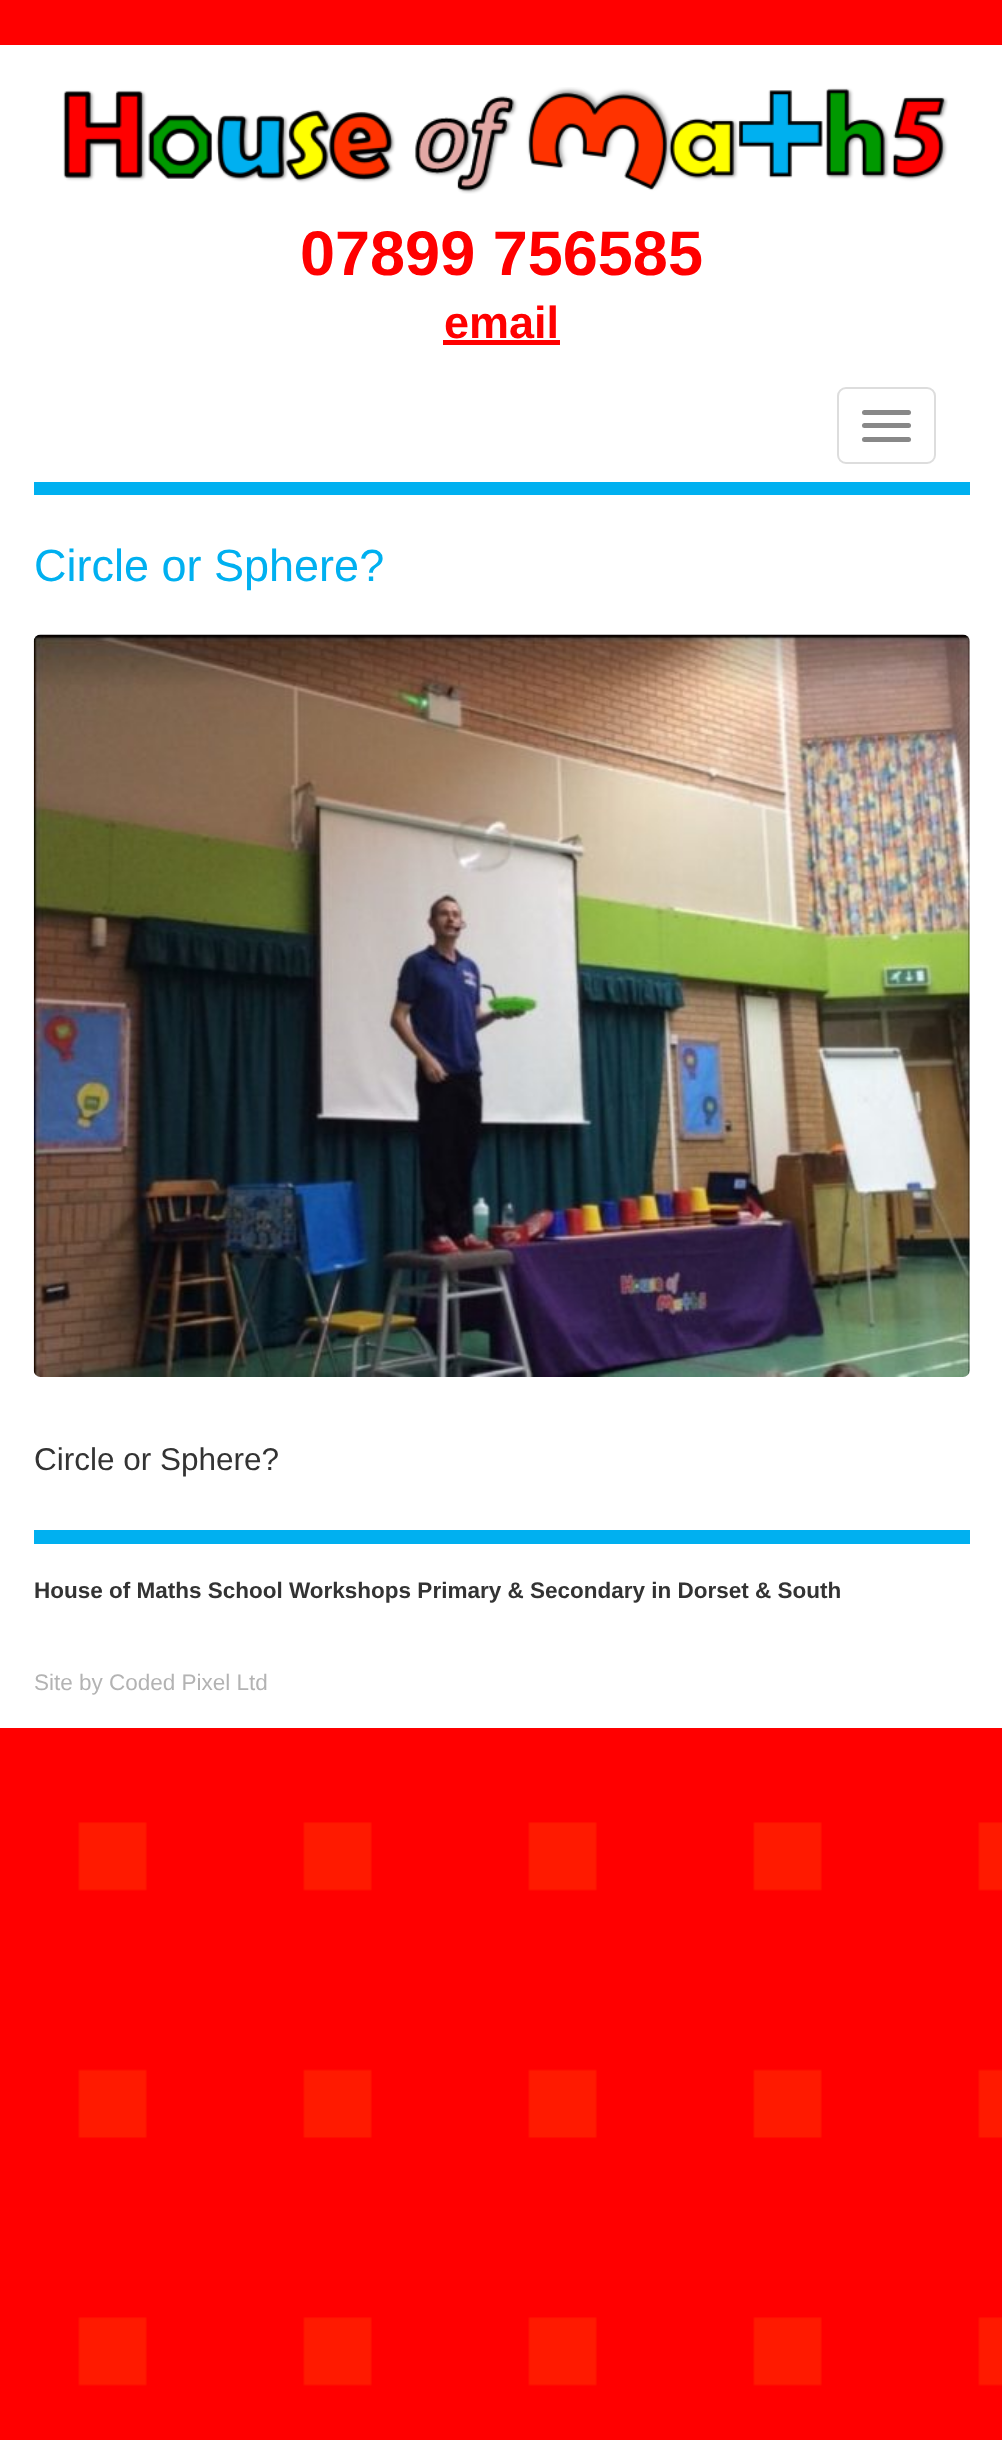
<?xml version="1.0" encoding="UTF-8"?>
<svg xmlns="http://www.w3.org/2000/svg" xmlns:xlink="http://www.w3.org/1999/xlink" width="1002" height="2440">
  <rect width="100%" height="100%" fill="#ff0000" />
  <image x="78" y="1728" width="924" height="658" xlink:href="image1.png" />
  <rect y="45" width="1002" height="1683" fill="#ffffff" />
  <image x="63" y="87" width="885" height="107" xlink:href="image2.png" />
  <rect x="443" y="340" width="117" height="5" fill="#ff0000" />
  <rect x="34" y="482" width="936" height="13" fill="#00b0f0" />
  <rect x="838" y="388" width="97" height="75" rx="8" fill="none" stroke="#dddddd" stroke-width="2" />
  <rect x="862" y="410" width="49" height="5" rx="2.5" fill="#888888" />
  <rect x="862" y="423" width="49" height="5" rx="2.5" fill="#888888" />
  <rect x="862" y="437" width="49" height="5" rx="2.5" fill="#888888" />
  <image x="33" y="634" width="937" height="743" xlink:href="image3.png" />
  <rect x="34" y="1530" width="936" height="14" fill="#00b0f0" />
  <text x="300" y="275" style="font-family: Liberation Sans; font-size: 63px; font-weight: bold; fill: #ff0000">07899 756585</text>
  <text x="444" y="338" style="font-family: Liberation Sans; font-size: 45px; font-weight: bold; fill: #ff0000">email</text>
  <text x="34" y="581" style="font-family: Liberation Sans; font-size: 45px; fill: #00b0f0">Circle or Sphere?</text>
  <text x="34" y="1470" style="font-family: Liberation Sans; font-size: 31.5px; fill: #333333">Circle or Sphere?</text>
  <text x="34" y="1598" style="font-family: Liberation Sans; font-size: 22.5px; font-weight: bold; fill: #333333">House of Maths School Workshops Primary &amp; Secondary in Dorset &amp; South</text>
  <text x="34" y="1690" style="font-family: Liberation Sans; font-size: 22.5px; fill: #b3b3b3">Site by Coded Pixel Ltd</text>
</svg>
